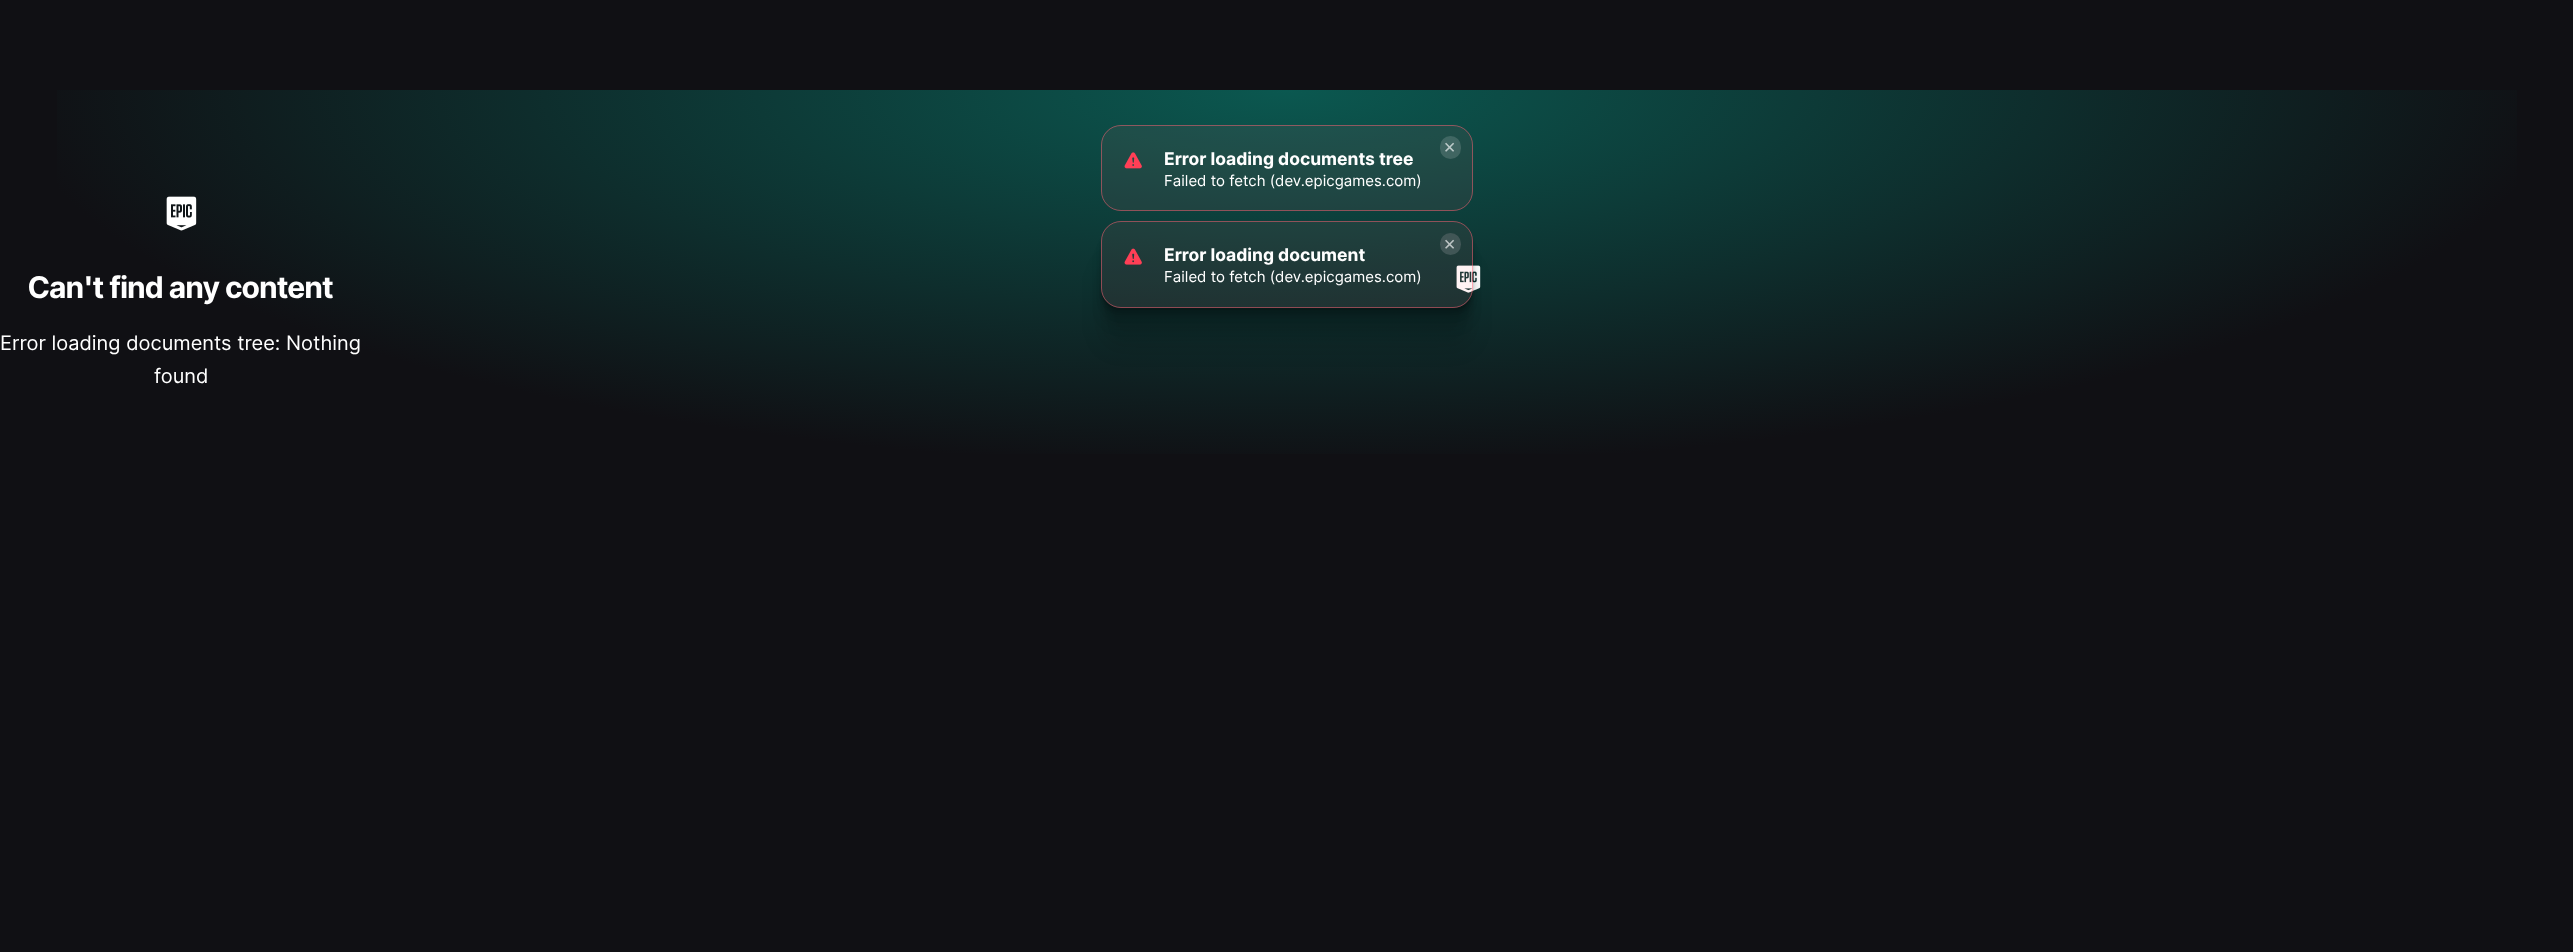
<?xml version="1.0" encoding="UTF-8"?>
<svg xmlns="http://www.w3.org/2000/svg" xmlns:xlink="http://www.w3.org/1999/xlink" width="2573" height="952">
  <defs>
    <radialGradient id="g1" gradientUnits="userSpaceOnUse" cx="0" cy="0" r="1" gradientTransform="matrix(1820 0 0 539 1287 90)"><stop offset="0" stop-color="#0b5850" /><stop offset="0.7" stop-color="#101014" /></radialGradient>
    <clipPath id="clip1"><path d="M 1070 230 h 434 v 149 h -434 z m 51 -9 h 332 c 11 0 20 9 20 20 v 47 c 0 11 -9 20 -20 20 h -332 c -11 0 -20 -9 -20 -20 v -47 c 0 -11 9 -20 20 -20 z" clip-rule="evenodd" /></clipPath>
    <clipPath id="clip2"><path d="M 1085 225 h 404 v 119 h -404 z m 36 -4 h 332 c 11 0 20 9 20 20 v 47 c 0 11 -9 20 -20 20 h -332 c -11 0 -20 -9 -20 -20 v -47 c 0 -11 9 -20 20 -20 z" clip-rule="evenodd" /></clipPath>
    <clipPath id="clip3"><path d="M 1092 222 h 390 v 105 h -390 z m 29 -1 h 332 c 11 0 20 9 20 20 v 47 c 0 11 -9 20 -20 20 h -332 c -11 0 -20 -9 -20 -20 v -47 c 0 -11 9 -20 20 -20 z" clip-rule="evenodd" /></clipPath>
    <clipPath id="clip4"><path d="M 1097 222 h 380 v 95 h -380 z m 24 -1 h 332 c 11 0 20 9 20 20 v 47 c 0 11 -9 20 -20 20 h -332 c -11 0 -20 -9 -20 -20 v -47 c 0 -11 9 -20 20 -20 z" clip-rule="evenodd" /></clipPath>
    <clipPath id="clip5"><path d="M 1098 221 h 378 v 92 h -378 z m 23 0 h 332 c 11 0 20 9 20 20 v 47 c 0 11 -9 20 -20 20 h -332 c -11 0 -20 -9 -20 -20 v -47 c 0 -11 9 -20 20 -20 z" clip-rule="evenodd" /></clipPath>
  </defs>
  <rect width="100%" height="100%" fill="#101014" />
  <rect x="57" y="90" width="2460" height="364" fill="url(#g1)" />
  <rect x="1101" y="125" width="372" height="86" rx="20" fill="#ff6173" fill-opacity="0.08" />
  <rect x="1101.5" y="125.5" width="371" height="85" rx="19.5" fill="none" stroke="#ff6173" stroke-opacity="0.5" />
  <rect x="1440" y="136" width="21" height="23" rx="10.5" fill="#ffffff" fill-opacity="0.15" />
  <image x="1124" y="152" width="18" height="17" xlink:href="image1.png" />
  <image x="1456" y="265" width="25" height="28" xlink:href="image4.png" />
  <g clip-path="url(#clip1)">
    <rect x="1101" y="261" width="372" height="87" rx="20" fill="#000000" fill-opacity="0.1" filter="blur(10px)" />
  </g>
  <g clip-path="url(#clip2)">
    <rect x="1101" y="241" width="372" height="87" rx="20" fill="#000000" fill-opacity="0.1" filter="blur(5px)" />
  </g>
  <g clip-path="url(#clip3)">
    <rect x="1101" y="231" width="372" height="87" rx="20" fill="#000000" fill-opacity="0.1" filter="blur(2.5px)" />
  </g>
  <g clip-path="url(#clip4)">
    <rect x="1101" y="226" width="372" height="87" rx="20" fill="#000000" fill-opacity="0.1" filter="blur(1px)" />
  </g>
  <g clip-path="url(#clip5)">
    <rect x="1101" y="224" width="372" height="86" rx="20" fill="#000000" fill-opacity="0.1" filter="blur(0.5px)" />
  </g>
  <rect x="1101" y="221" width="372" height="87" rx="20" fill="#ff6173" fill-opacity="0.08" />
  <rect x="1101.5" y="221.5" width="371" height="86" rx="19.5" fill="none" stroke="#ff6173" stroke-opacity="0.5" />
  <rect x="1440" y="233" width="21" height="22" rx="10.5" fill="#415656" />
  <image x="1124" y="248" width="18" height="17" xlink:href="image2.png" />
  <image x="166" y="196" width="31" height="35" xlink:href="image3.png" />
  <text x="1443" y="153" style="font-family: Inter; font-size: 20px; fill: #bccac9">×</text>
  <text x="1164" y="165" style="font-family: Inter; font-size: 17.5px; font-weight: bold; fill: #ffffff">Error loading documents tree</text>
  <text x="1164" y="186" style="font-family: Inter; font-size: 15px; fill: #ffffff">Failed to fetch (dev.epicgames.com)</text>
  <text x="1443" y="250" style="font-family: Inter; font-size: 20px; fill: #bdc4c4">×</text>
  <text x="1164" y="261" style="font-family: Inter; font-size: 17.5px; font-weight: bold; fill: #ffffff">Error loading document</text>
  <text x="1164" y="282" style="font-family: Inter; font-size: 15px; fill: #ffffff">Failed to fetch (dev.epicgames.com)</text>
  <text x="28" y="298" style="font-family: Inter Tight; font-size: 30px; font-weight: bold; fill: #ffffff">Can't find any content</text>
  <text x="0" y="350" style="font-family: Inter; font-size: 20px; fill: #ffffff">Error loading documents tree: Nothing</text>
  <text x="154" y="383" style="font-family: Inter; font-size: 20px; fill: #ffffff">found</text>
</svg>
